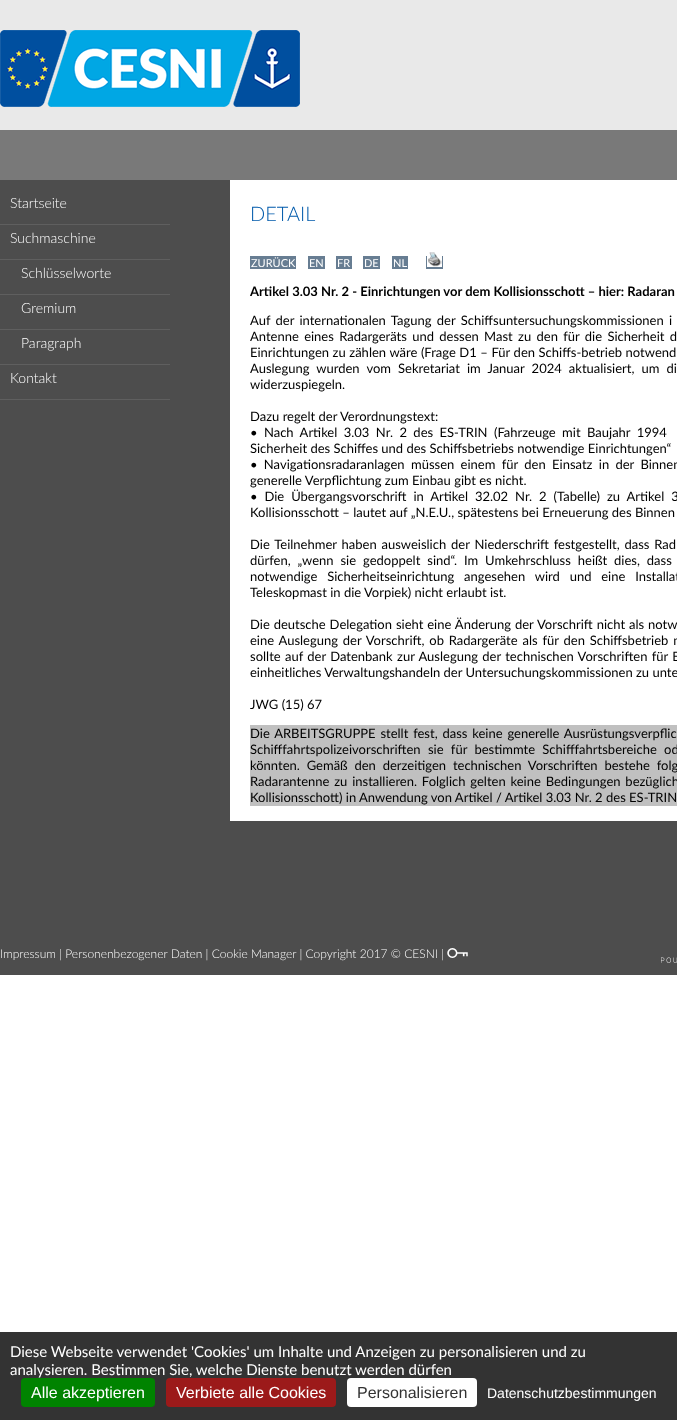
<?xml version="1.0" encoding="UTF-8"?>
<svg xmlns="http://www.w3.org/2000/svg" xmlns:xlink="http://www.w3.org/1999/xlink" width="677" height="1420">
  <rect width="100%" height="100%" fill="#ffffff" />
  <rect width="677" height="130" fill="#e9e9e9" />
  <image x="0" y="30" width="300" height="77" xlink:href="image1.png" />
  <rect y="130" width="677" height="50" fill="#797979" />
  <rect y="180" width="230" height="615" fill="#4d4d4d" />
  <rect y="224" width="170" height="1" fill="#5f5f5f" />
  <rect y="259" width="170" height="1" fill="#5f5f5f" />
  <rect y="294" width="170" height="1" fill="#5f5f5f" />
  <rect y="329" width="170" height="1" fill="#5f5f5f" />
  <rect y="364" width="170" height="1" fill="#5f5f5f" />
  <rect y="399" width="170" height="1" fill="#5f5f5f" />
  <rect y="795" width="677" height="180" fill="#4d4d4d" />
  <rect x="230" y="795" width="447" height="26" fill="#ffffff" />
  <rect x="426" y="256" width="17" height="13" fill="#677d92" />
  <rect x="427" y="256" width="15" height="11" fill="#ffffff" />
  <image x="428" y="252" width="14" height="15" xlink:href="image2.png" />
  <rect x="250" y="256" width="46" height="13" fill="#677d92" />
  <rect x="308" y="256" width="17" height="13" fill="#677d92" />
  <rect x="336" y="256" width="16" height="13" fill="#677d92" />
  <rect x="363" y="256" width="17" height="13" fill="#677d92" />
  <rect x="392" y="256" width="16" height="13" fill="#677d92" />
  <rect x="250" y="725" width="427" height="81" fill="#c0c0c0" />
  <image x="447" y="948" width="21" height="10" xlink:href="image3.png" />
  <image x="661" y="957" width="16" height="6" xlink:href="image4.png" />
  <rect y="1332" width="677" height="88" fill="#333333" />
  <rect x="21" y="1378" width="134" height="29" rx="4" fill="#008300" />
  <rect x="166" y="1378" width="170" height="29" rx="4" fill="#9c1a1a" />
  <rect x="347" y="1378" width="130" height="29" rx="4" fill="#ffffff" />
  <text x="10" y="208" style="font-family: Lato; font-size: 14px; font-weight: 300; fill: #ffffff">Startseite</text>
  <text x="10" y="243" style="font-family: Lato; font-size: 14px; font-weight: 300; fill: #ffffff">Suchmaschine</text>
  <text x="21" y="278" style="font-family: Lato; font-size: 14px; font-weight: 300; fill: #ffffff">Schlüsselworte</text>
  <text x="21" y="313" style="font-family: Lato; font-size: 14px; font-weight: 300; fill: #ffffff">Gremium</text>
  <text x="21" y="348" style="font-family: Lato; font-size: 14px; font-weight: 300; fill: #ffffff">Paragraph</text>
  <text x="10" y="383" style="font-family: Lato; font-size: 14px; font-weight: 300; fill: #ffffff">Kontakt</text>
  <text x="250" y="221" style="font-family: Lato; font-size: 20px; font-weight: 300; fill: #005aab">DETAIL</text>
  <text x="251" y="267" style="font-family: Lato; font-size: 11px; fill: #ffffff">ZURÜCK</text>
  <text x="309" y="267" style="font-family: Lato; font-size: 11px; fill: #ffffff">EN</text>
  <text x="337" y="267" style="font-family: Lato; font-size: 11px; fill: #ffffff">FR</text>
  <text x="364" y="267" style="font-family: Lato; font-size: 11px; fill: #ffffff">DE</text>
  <text x="393" y="267" style="font-family: Lato; font-size: 11px; fill: #ffffff">NL</text>
  <text x="250" y="296" style="font-family: Lato; font-size: 13px; font-weight: bold; fill: #000000">Artikel 3.03 Nr. 2 - Einrichtungen vor dem Kollisionsschott – hier: Radaran</text>
  <text x="250" y="325" word-spacing="2" style="font-family: Lato; font-size: 13px; fill: #000000">Auf der internationalen Tagung der Schiffsuntersuchungskommissionen i</text>
  <text x="250" y="341" word-spacing="2" style="font-family: Lato; font-size: 13px; fill: #000000">Antenne eines Radargeräts und dessen Mast zu den für die Sicherheit d</text>
  <text x="250" y="357" word-spacing="0.25" style="font-family: Lato; font-size: 13px; fill: #000000">Einrichtungen zu zählen wäre (Frage D1 – Für den Schiffs-betrieb notwend</text>
  <text x="250" y="373" word-spacing="3.75" style="font-family: Lato; font-size: 13px; fill: #000000">Auslegung wurden vom Sekretariat im Januar 2024 aktualisiert, um di</text>
  <text x="250" y="389" style="font-family: Lato; font-size: 13px; fill: #000000">widerzuspiegeln.</text>
  <text x="250" y="421" style="font-family: Lato; font-size: 13px; fill: #000000">Dazu regelt der Verordnungstext:</text>
  <text x="250" y="437" word-spacing="3.1" style="font-family: Lato; font-size: 13px; fill: #000000">• Nach Artikel 3.03 Nr. 2 des ES-TRIN (Fahrzeuge mit Baujahr 1994</text>
  <text x="250" y="453" style="font-family: Lato; font-size: 13px; fill: #000000">Sicherheit des Schiffes und des Schiffsbetriebs notwendige Einrichtungen“</text>
  <text x="250" y="469" word-spacing="3" style="font-family: Lato; font-size: 13px; fill: #000000">• Navigationsradaranlagen müssen einem für den Einsatz in der Binnen</text>
  <text x="250" y="485" style="font-family: Lato; font-size: 13px; fill: #000000">generelle Verpflichtung zum Einbau gibt es nicht.</text>
  <text x="250" y="501" word-spacing="3.6" style="font-family: Lato; font-size: 13px; fill: #000000">• Die Übergangsvorschrift in Artikel 32.02 Nr. 2 (Tabelle) zu Artikel 3</text>
  <text x="250" y="517" style="font-family: Lato; font-size: 13px; fill: #000000">Kollisionsschott – lautet auf „N.E.U., spätestens bei Erneuerung des Binnen</text>
  <text x="250" y="549" word-spacing="1.5" style="font-family: Lato; font-size: 13px; fill: #000000">Die Teilnehmer haben ausweislich der Niederschrift festgestellt, dass Rad</text>
  <text x="250" y="565" word-spacing="3.6" style="font-family: Lato; font-size: 13px; fill: #000000">dürfen, „wenn sie gedoppelt sind“. Im Umkehrschluss heißt dies, dass</text>
  <text x="250" y="581" word-spacing="6.5" style="font-family: Lato; font-size: 13px; fill: #000000">notwendige Sicherheitseinrichtung angesehen wird und eine Installat</text>
  <text x="250" y="597" style="font-family: Lato; font-size: 13px; fill: #000000">Teleskopmast in die Vorpiek) nicht erlaubt ist.</text>
  <text x="250" y="629" word-spacing="0.6" style="font-family: Lato; font-size: 13px; fill: #000000">Die deutsche Delegation sieht eine Änderung der Vorschrift nicht als notw</text>
  <text x="250" y="645" word-spacing="1.5" style="font-family: Lato; font-size: 13px; fill: #000000">eine Auslegung der Vorschrift, ob Radargeräte als für den Schiffsbetrieb n</text>
  <text x="250" y="661" word-spacing="1" style="font-family: Lato; font-size: 13px; fill: #000000">sollte auf der Datenbank zur Auslegung der technischen Vorschriften für B</text>
  <text x="250" y="677" style="font-family: Lato; font-size: 13px; fill: #000000">einheitliches Verwaltungshandeln der Untersuchungskommissionen zu unte</text>
  <text x="250" y="709" style="font-family: Lato; font-size: 13px; fill: #000000">JWG (15) 67</text>
  <text x="250" y="738" word-spacing="1.5" style="font-family: Lato; font-size: 13px; fill: #000000">Die ARBEITSGRUPPE stellt fest, dass keine generelle Ausrüstungsverpflic</text>
  <text x="250" y="754" word-spacing="4" style="font-family: Lato; font-size: 13px; fill: #000000">Schifffahrtspolizeivorschriften sie für bestimmte Schifffahrtsbereiche od</text>
  <text x="250" y="770" word-spacing="3.5" style="font-family: Lato; font-size: 13px; fill: #000000">könnten. Gemäß den derzeitigen technischen Vorschriften bestehe folg</text>
  <text x="250" y="786" word-spacing="1.5" style="font-family: Lato; font-size: 13px; fill: #000000">Radarantenne zu installieren. Folglich gelten keine Bedingungen bezüglich</text>
  <text x="250" y="802" style="font-family: Lato; font-size: 13px; fill: #000000">Kollisionsschott) in Anwendung von Artikel / Artikel 3.03 Nr. 2 des ES-TRIN</text>
  <text x="0" y="958" style="font-family: Lato; font-size: 12px; font-weight: 300; fill: #ffffff">Impressum | Personenbezogener Daten | Cookie Manager | Copyright 2017 © CESNI |</text>
  <text x="10" y="1357" style="font-family: Lato; font-size: 15px; fill: #ffffff">Diese Webseite verwendet 'Cookies' um Inhalte und Anzeigen zu personalisieren und zu</text>
  <text x="10" y="1375" style="font-family: Lato; font-size: 15px; fill: #ffffff">analysieren. Bestimmen Sie, welche Dienste benutzt werden dürfen</text>
  <text x="31" y="1398" style="font-family: Liberation Sans; font-size: 16px; fill: #ffffff">Alle akzeptieren</text>
  <text x="176" y="1398" style="font-family: Liberation Sans; font-size: 16px; fill: #ffffff">Verbiete alle Cookies</text>
  <text x="357" y="1398" style="font-family: Liberation Sans; font-size: 16px; fill: #333333">Personalisieren</text>
  <text x="487" y="1398" style="font-family: Liberation Sans; font-size: 14px; fill: #ffffff">Datenschutzbestimmungen</text>
</svg>
